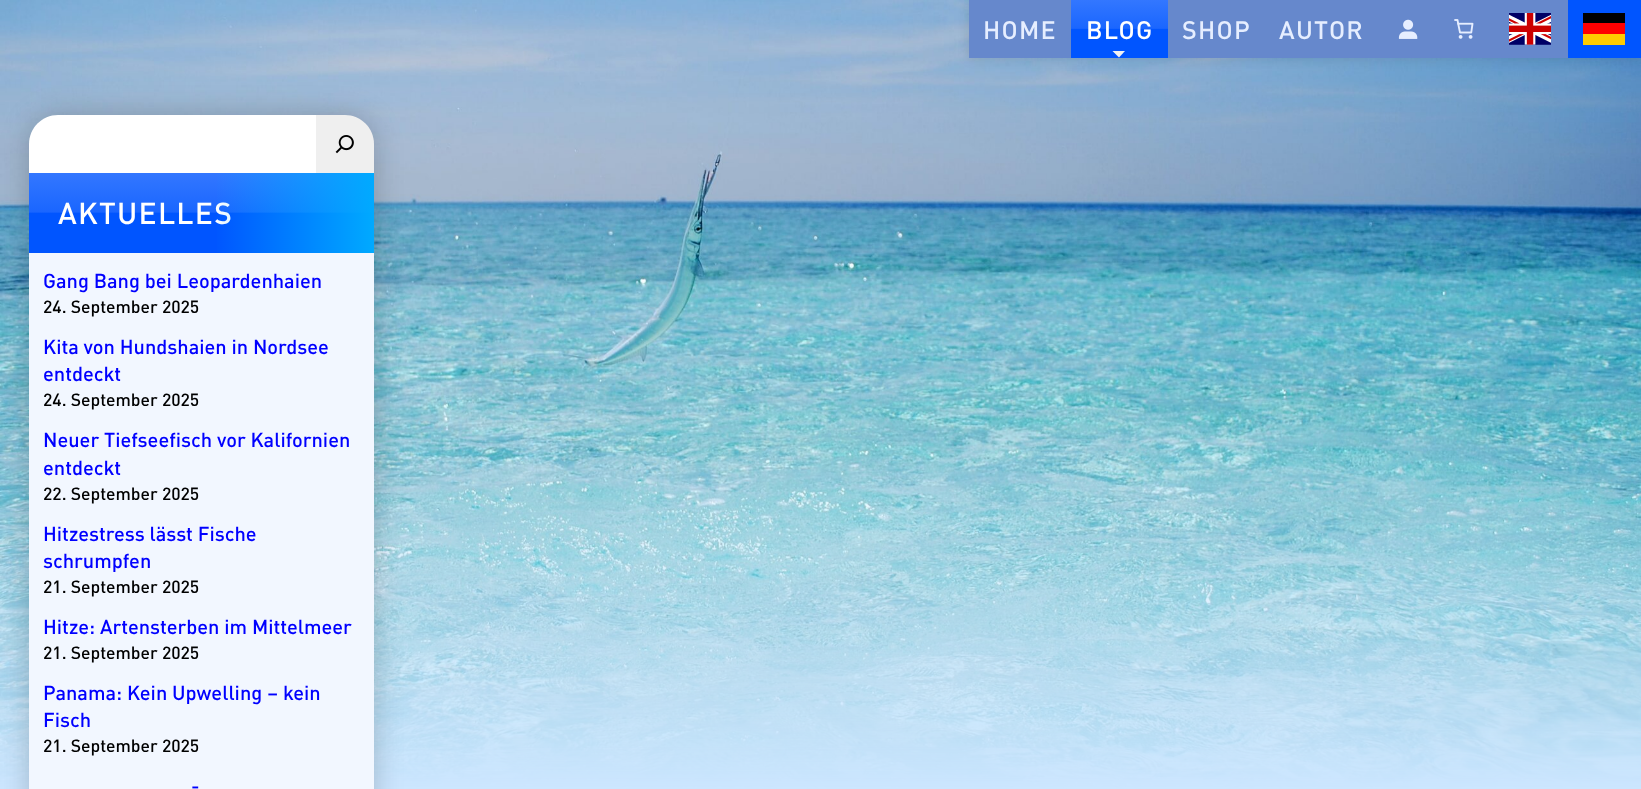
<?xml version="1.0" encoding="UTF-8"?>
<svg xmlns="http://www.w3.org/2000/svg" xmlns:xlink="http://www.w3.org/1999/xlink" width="1641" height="789">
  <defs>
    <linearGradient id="g1" gradientUnits="userSpaceOnUse" x1="1119" y1="0" x2="1119" y2="58"><stop offset="0" stop-color="#3377ff" /><stop offset="0.49" stop-color="#1a66ff" /><stop offset="0.5" stop-color="#0055ff" /></linearGradient>
    <linearGradient id="g2" gradientUnits="userSpaceOnUse" x1="201" y1="173" x2="201" y2="253"><stop offset="0" stop-color="#3377ff" /><stop offset="0.49" stop-color="#1a66ff" /><stop offset="0.5" stop-color="#0055ff" /></linearGradient>
    <linearGradient id="g3" gradientUnits="userSpaceOnUse" x1="214" y1="213" x2="374" y2="213"><stop offset="0" stop-color="#00aaff" stop-opacity="0" /><stop offset="1" stop-color="#00aaff" /></linearGradient>
  </defs>
  <rect width="100%" height="100%" fill="#ffffff" />
  <image x="0" y="0" width="1641" height="789" xlink:href="image1.png" />
  <rect x="969" width="672" height="58" fill="#000000" fill-opacity="0.12" filter="blur(6px)" />
  <rect x="969" width="599" height="58" fill="#6688cc" />
  <rect x="1071" width="97" height="58" fill="url(#g1)" />
  <path d="M 1112.5 51 h 12.5 l -6 6.5 z" fill="#f2f2f2" />
  <image x="1398" y="19" width="20" height="20" xlink:href="image2.png" />
  <image x="1454" y="19" width="20" height="20" xlink:href="image3.png" />
  <image x="1509" y="13" width="42" height="32" xlink:href="image4.png" />
  <rect x="1568" width="73" height="58" fill="#0055ff" />
  <rect x="1583" y="34" width="42" height="11" fill="#ffcc00" />
  <rect x="1583" y="13" width="42" height="10" fill="#000000" />
  <rect x="1583" y="23" width="42" height="11" fill="#ff0000" />
  <rect x="29" y="115" width="345" height="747" rx="29" fill="#000000" fill-opacity="0.2" filter="blur(14.5px)" />
  <path d="M 58 115 h 258 v 58 h -287 v -29 c 0 -16 13 -29 29 -29 z" fill="#ffffff" />
  <path d="M 316 115 h 29 c 16 0 29 13 29 29 v 29 h -58 z" fill="#efefef" />
  <image x="335" y="135" width="19" height="19" xlink:href="image5.png" />
  <rect x="29" y="253" width="345" height="536" fill="#f2f7ff" />
  <rect x="29" y="173" width="344" height="80" fill="url(#g2)" />
  <text x="983" y="39" style="font-family: DIN; font-size: 25px; font-weight: 500; letter-spacing: 1.25px; fill: #e6eeff">HOME</text>
  <text x="1086" y="39" style="font-family: DIN; font-size: 25px; font-weight: 500; letter-spacing: 1.25px; fill: #ffffff">BLOG</text>
  <text x="1182" y="39" style="font-family: DIN; font-size: 25px; font-weight: 500; letter-spacing: 1.25px; fill: #e6eeff">SHOP</text>
  <text x="1279" y="39" style="font-family: DIN; font-size: 25px; font-weight: 500; letter-spacing: 1.25px; fill: #e6eeff">AUTOR</text>
  <text x="58" y="224" style="font-family: DIN; font-size: 30px; font-weight: 500; letter-spacing: 1.25px; fill: #ffffff">AKTUELLES</text>
  <rect x="217" y="173" width="157" height="80" fill="url(#g3)" />
  <text x="43" y="288" style="font-family: DIN; font-size: 20px; font-weight: 500; fill: #0000ff">Gang Bang bei Leopardenhaien</text>
  <text x="43" y="313" style="font-family: DIN; font-size: 17.5px; font-weight: 500; fill: #000000">24. September 2025</text>
  <text x="43" y="354" style="font-family: DIN; font-size: 20px; font-weight: 500; fill: #0000ff">Kita von Hundshaien in Nordsee</text>
  <text x="43" y="381" style="font-family: DIN; font-size: 20px; font-weight: 500; fill: #0000ff">entdeckt</text>
  <text x="43" y="406" style="font-family: DIN; font-size: 17.5px; font-weight: 500; fill: #000000">24. September 2025</text>
  <text x="43" y="447" style="font-family: DIN; font-size: 20px; font-weight: 500; fill: #0000ff">Neuer Tiefseefisch vor Kalifornien</text>
  <text x="43" y="475" style="font-family: DIN; font-size: 20px; font-weight: 500; fill: #0000ff">entdeckt</text>
  <text x="43" y="500" style="font-family: DIN; font-size: 17.5px; font-weight: 500; fill: #000000">22. September 2025</text>
  <text x="43" y="541" style="font-family: DIN; font-size: 20px; font-weight: 500; fill: #0000ff">Hitzestress lässt Fische</text>
  <text x="43" y="568" style="font-family: DIN; font-size: 20px; font-weight: 500; fill: #0000ff">schrumpfen</text>
  <text x="43" y="593" style="font-family: DIN; font-size: 17.5px; font-weight: 500; fill: #000000">21. September 2025</text>
  <text x="43" y="634" style="font-family: DIN; font-size: 20px; font-weight: 500; fill: #0000ff">Hitze: Artensterben im Mittelmeer</text>
  <text x="43" y="659" style="font-family: DIN; font-size: 17.5px; font-weight: 500; fill: #000000">21. September 2025</text>
  <text x="43" y="700" style="font-family: DIN; font-size: 20px; font-weight: 500; fill: #0000ff">Panama: Kein Upwelling – kein</text>
  <text x="43" y="727" style="font-family: DIN; font-size: 20px; font-weight: 500; fill: #0000ff">Fisch</text>
  <text x="43" y="752" style="font-family: DIN; font-size: 17.5px; font-weight: 500; fill: #000000">21. September 2025</text>
  <text x="191" y="793" style="font-family: DIN; font-size: 20px; font-weight: 500; fill: #0000ff">-</text>
</svg>
